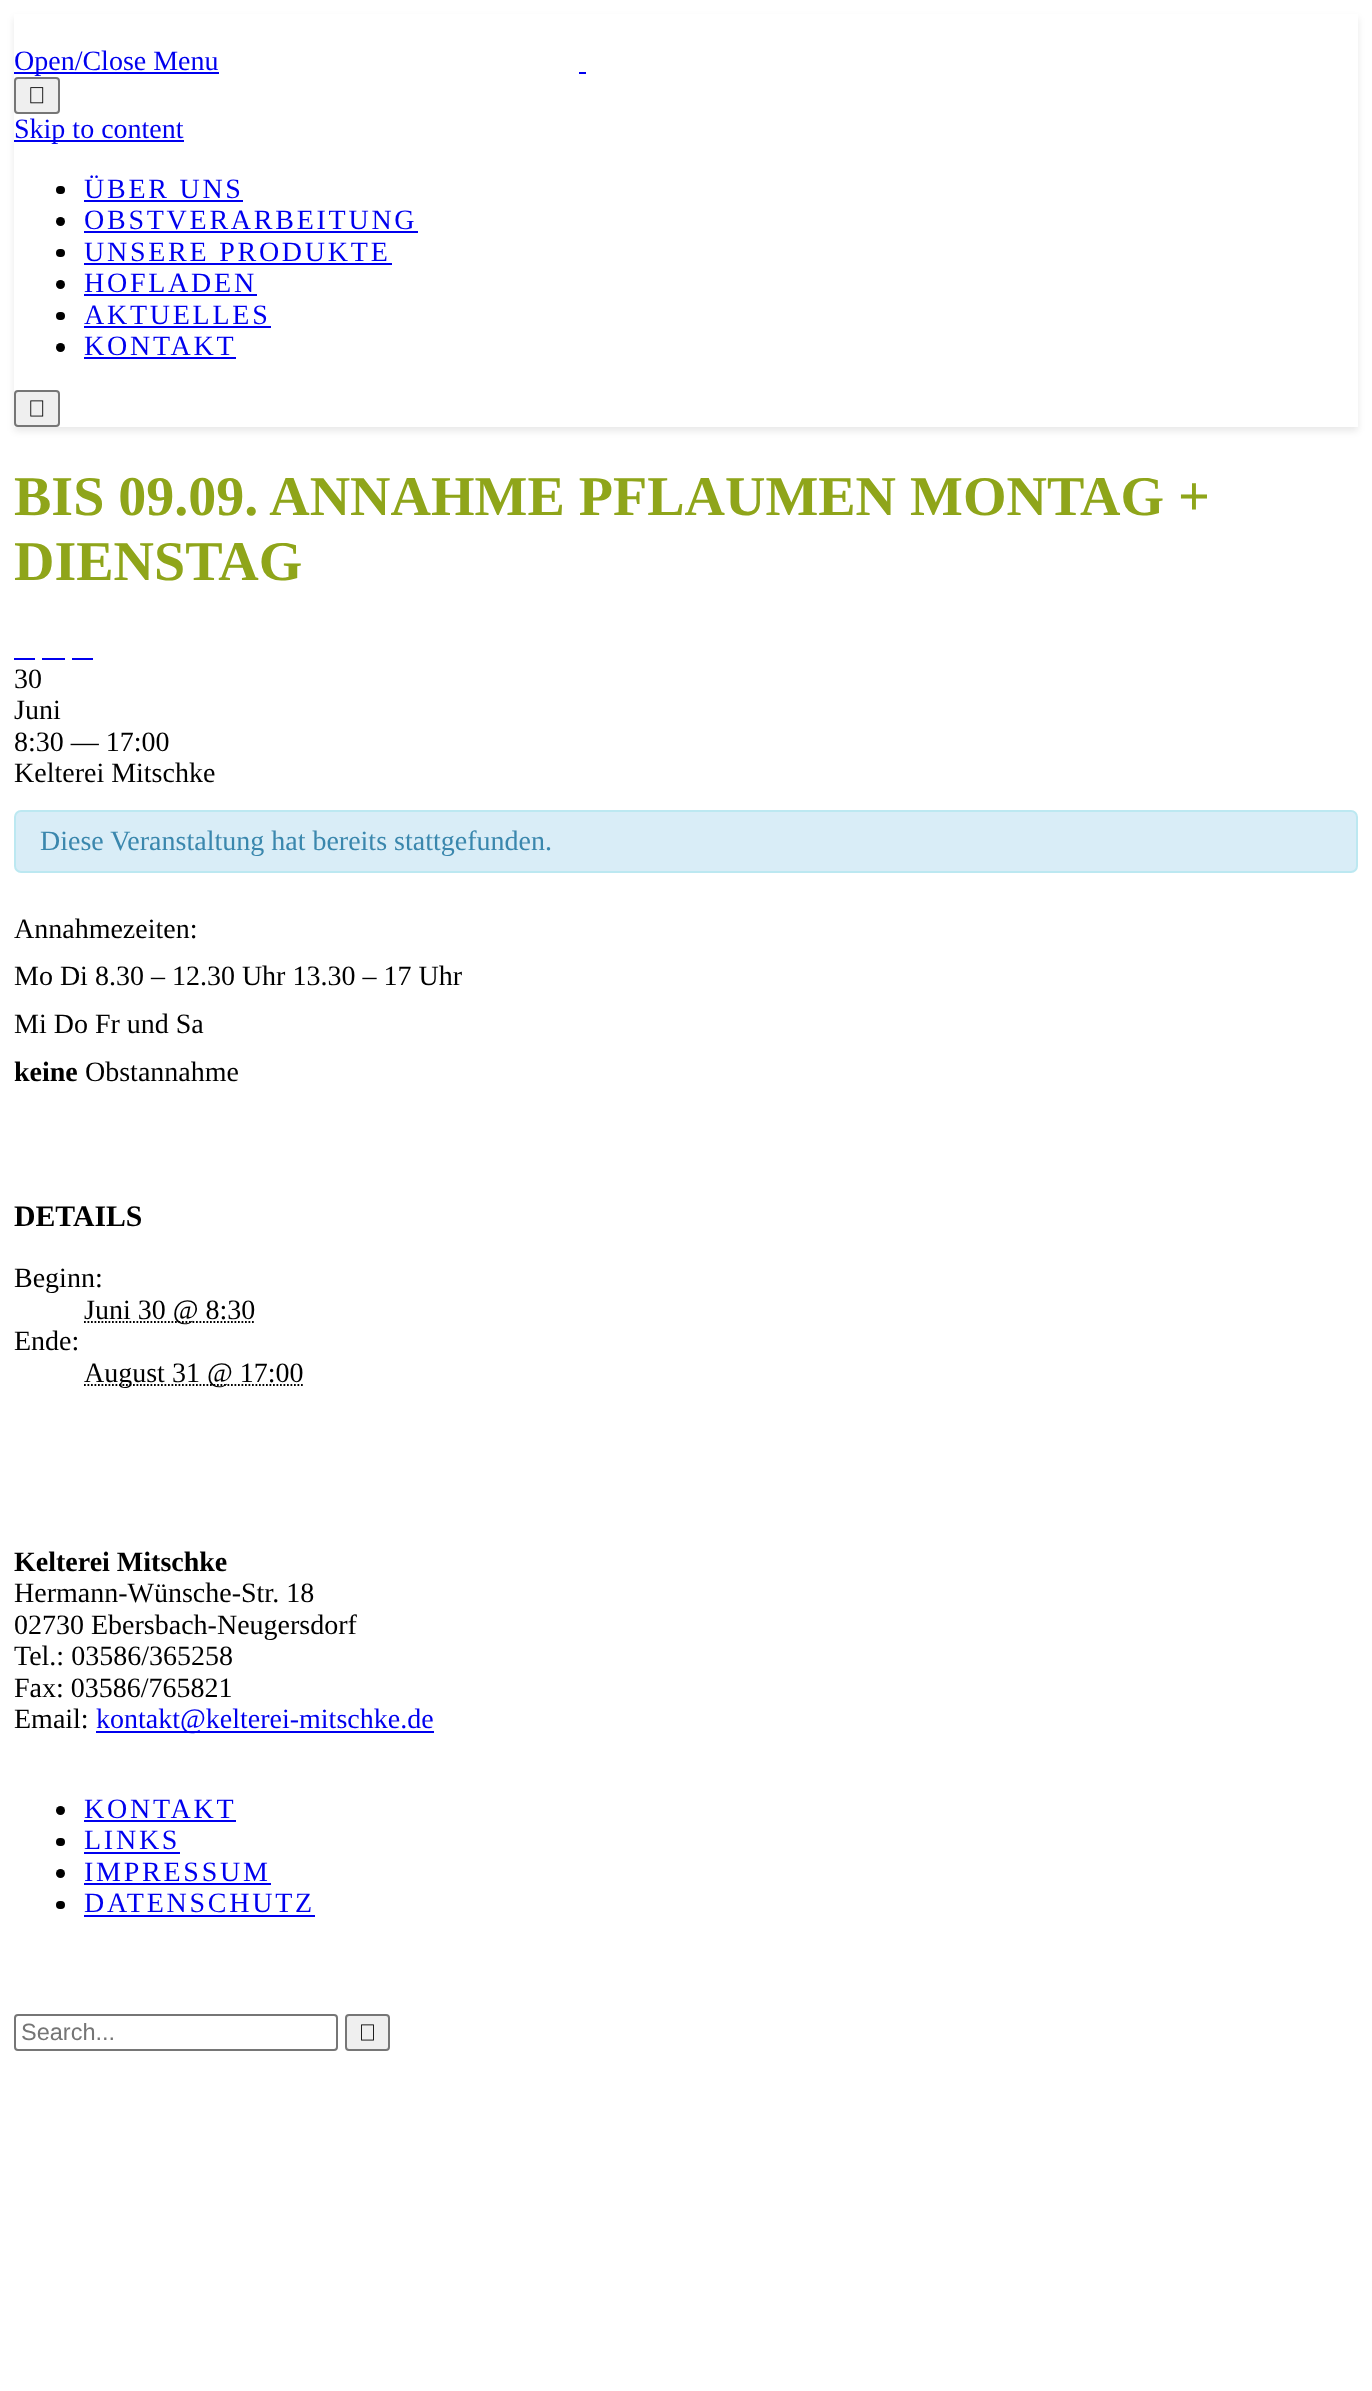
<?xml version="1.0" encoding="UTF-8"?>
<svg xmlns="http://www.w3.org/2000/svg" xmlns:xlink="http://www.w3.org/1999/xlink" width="1372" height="2391">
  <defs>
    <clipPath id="clip1"><path d="M 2 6 h 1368 v 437 h -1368 z m 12 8 h 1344 v 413 h -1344 z" clip-rule="evenodd" /></clipPath>
  </defs>
  <rect width="100%" height="100%" fill="#ffffff" />
  <g clip-path="url(#clip1)">
    <rect x="14" y="18" width="1344" height="413" fill="#000000" fill-opacity="0.09" filter="blur(3.5px)" />
  </g>
  <rect x="14" y="72" width="205" height="2" fill="#0000ee" />
  <rect x="579" y="72" width="7" height="2" fill="#0000ee" />
  <rect x="15" y="78" width="44" height="35" rx="3" fill="#efefef" stroke="#767676" stroke-width="2" />
  <image x="30" y="87" width="14" height="17" xlink:href="image1.png" />
  <rect x="14" y="140" width="170" height="2" fill="#0000ee" />
  <rect x="56" y="186" width="9" height="8" rx="4" fill="#000000" />
  <rect x="84" y="200" width="159" height="2" fill="#0000ee" />
  <circle cx="60.5" cy="221.5" r="4.5" fill="#000000" />
  <rect x="84" y="231" width="334" height="2" fill="#0000ee" />
  <rect x="56" y="249" width="9" height="8" rx="4" fill="#000000" />
  <rect x="84" y="263" width="308" height="2" fill="#0000ee" />
  <circle cx="60.5" cy="284.5" r="4.5" fill="#000000" />
  <rect x="84" y="294" width="173" height="2" fill="#0000ee" />
  <rect x="56" y="312" width="9" height="8" rx="4" fill="#000000" />
  <rect x="84" y="326" width="187" height="2" fill="#0000ee" />
  <circle cx="60.5" cy="347.5" r="4.5" fill="#000000" />
  <rect x="84" y="357" width="152" height="2" fill="#0000ee" />
  <rect x="15" y="391" width="44" height="35" rx="3" fill="#efefef" stroke="#767676" stroke-width="2" />
  <image x="30" y="400" width="14" height="17" xlink:href="image2.png" />
  <rect x="14" y="658" width="21" height="2" fill="#0000ee" />
  <rect x="42" y="658" width="23" height="2" fill="#0000ee" />
  <rect x="72" y="658" width="21" height="2" fill="#0000ee" />
  <rect x="15" y="811" width="1342" height="61" rx="6" fill="#d9edf7" stroke="#bce8f1" stroke-width="2" />
  <path d="M 84 1322 h 171.5" fill="none" stroke="#000000" stroke-width="1.8" stroke-dasharray="1.75 1.75" />
  <path d="M 84 1385 h 219.5" fill="none" stroke="#000000" stroke-width="1.8" stroke-dasharray="1.75 1.75" />
  <rect x="96" y="1731" width="338" height="2" fill="#0000ee" />
  <circle cx="60.5" cy="1810.5" r="4.5" fill="#000000" />
  <rect x="84" y="1820" width="152" height="2" fill="#0000ee" />
  <rect x="56" y="1838" width="9" height="8" rx="4" fill="#000000" />
  <rect x="84" y="1852" width="96" height="2" fill="#0000ee" />
  <circle cx="60.5" cy="1873.5" r="4.5" fill="#000000" />
  <rect x="84" y="1883" width="187" height="2" fill="#0000ee" />
  <rect x="56" y="1901" width="9" height="8" rx="4" fill="#000000" />
  <rect x="84" y="1915" width="231" height="2" fill="#0000ee" />
  <rect x="15" y="2015" width="322" height="35" rx="3" fill="none" stroke="#767676" stroke-width="2" />
  <rect x="346" y="2015" width="43" height="35" rx="3" fill="#efefef" stroke="#767676" stroke-width="2" />
  <image x="361" y="2024" width="13" height="17" xlink:href="image3.png" />
  <text x="14" y="70" style="font-family: Liberation Serif; font-size: 28px; fill: #0000ee">Open/Close Menu</text>
  <text x="14" y="138" style="font-family: Liberation Serif; font-size: 28px; fill: #0000ee">Skip to content</text>
  <text x="84" y="198" style="font-family: Liberation Serif; font-size: 28px; letter-spacing: 2.75px; fill: #0000ee">ÜBER UNS</text>
  <text x="84" y="229" style="font-family: Liberation Serif; font-size: 28px; letter-spacing: 2.75px; fill: #0000ee">OBSTVERARBEITUNG</text>
  <text x="84" y="261" style="font-family: Liberation Serif; font-size: 28px; letter-spacing: 2.75px; fill: #0000ee">UNSERE PRODUKTE</text>
  <text x="84" y="292" style="font-family: Liberation Serif; font-size: 28px; letter-spacing: 2.75px; fill: #0000ee">HOFLADEN</text>
  <text x="84" y="324" style="font-family: Liberation Serif; font-size: 28px; letter-spacing: 2.75px; fill: #0000ee">AKTUELLES</text>
  <text x="84" y="355" style="font-family: Liberation Serif; font-size: 28px; letter-spacing: 2.75px; fill: #0000ee">KONTAKT</text>
  <text x="14" y="515" style="font-family: Liberation Serif; font-size: 56px; font-weight: bold; fill: #8fa51a">BIS 09.09. ANNAHME PFLAUMEN MONTAG +</text>
  <text x="14" y="580" style="font-family: Liberation Serif; font-size: 56px; font-weight: bold; fill: #8fa51a">DIENSTAG</text>
  <text x="14" y="688" style="font-family: Liberation Serif; font-size: 28px; fill: #000000">30</text>
  <text x="14" y="719" style="font-family: Liberation Serif; font-size: 28px; fill: #000000">Juni</text>
  <text x="14" y="751" style="font-family: Liberation Serif; font-size: 28px; fill: #000000">8:30 — 17:00</text>
  <text x="14" y="782" style="font-family: Liberation Serif; font-size: 28px; fill: #000000">Kelterei Mitschke</text>
  <text x="40" y="850" style="font-family: Liberation Serif; font-size: 28px; fill: #3a87ad">Diese Veranstaltung hat bereits stattgefunden.</text>
  <text x="14" y="938" style="font-family: Liberation Serif; font-size: 28px; fill: #000000">Annahmezeiten:</text>
  <text x="14" y="985" style="font-family: Liberation Serif; font-size: 28px; fill: #000000">Mo Di 8.30 – 12.30 Uhr 13.30 – 17 Uhr</text>
  <text x="14" y="1033" style="font-family: Liberation Serif; font-size: 28px; fill: #000000">Mi Do Fr und Sa</text>
  <text x="14" y="1081" style="font-family: Liberation Serif; font-size: 28px; font-weight: bold; fill: #000000">keine</text>
  <text x="85" y="1081" style="font-family: Liberation Serif; font-size: 28px; fill: #000000">Obstannahme</text>
  <text x="14" y="1226" style="font-family: Liberation Serif; font-size: 29.75px; font-weight: bold; fill: #000000">DETAILS</text>
  <text x="14" y="1287" style="font-family: Liberation Serif; font-size: 28px; fill: #000000">Beginn:</text>
  <text x="84" y="1319" style="font-family: Liberation Serif; font-size: 28px; fill: #000000">Juni 30 @ 8:30</text>
  <text x="14" y="1350" style="font-family: Liberation Serif; font-size: 28px; fill: #000000">Ende:</text>
  <text x="84" y="1382" style="font-family: Liberation Serif; font-size: 28px; fill: #000000">August 31 @ 17:00</text>
  <text x="14" y="1571" style="font-family: Liberation Serif; font-size: 28px; font-weight: bold; fill: #000000">Kelterei Mitschke</text>
  <text x="14" y="1602" style="font-family: Liberation Serif; font-size: 28px; fill: #000000">Hermann-Wünsche-Str. 18</text>
  <text x="14" y="1634" style="font-family: Liberation Serif; font-size: 28px; fill: #000000">02730 Ebersbach-Neugersdorf</text>
  <text x="14" y="1665" style="font-family: Liberation Serif; font-size: 28px; fill: #000000">Tel.: 03586/365258</text>
  <text x="14" y="1697" style="font-family: Liberation Serif; font-size: 28px; fill: #000000">Fax: 03586/765821</text>
  <text x="14" y="1728" style="font-family: Liberation Serif; font-size: 28px; fill: #000000">Email:</text>
  <text x="96" y="1728" style="font-family: Liberation Serif; font-size: 28px; fill: #0000ee">kontakt@kelterei-mitschke.de</text>
  <text x="84" y="1818" style="font-family: Liberation Serif; font-size: 28px; letter-spacing: 2.75px; fill: #0000ee">KONTAKT</text>
  <text x="84" y="1849" style="font-family: Liberation Serif; font-size: 28px; letter-spacing: 2.75px; fill: #0000ee">LINKS</text>
  <text x="84" y="1881" style="font-family: Liberation Serif; font-size: 28px; letter-spacing: 2.75px; fill: #0000ee">IMPRESSUM</text>
  <text x="84" y="1912" style="font-family: Liberation Serif; font-size: 28px; letter-spacing: 2.75px; fill: #0000ee">DATENSCHUTZ</text>
  <text x="21" y="2040" style="font-family: Liberation Sans; font-size: 23.5px; fill: #757575">Search...</text>
</svg>
